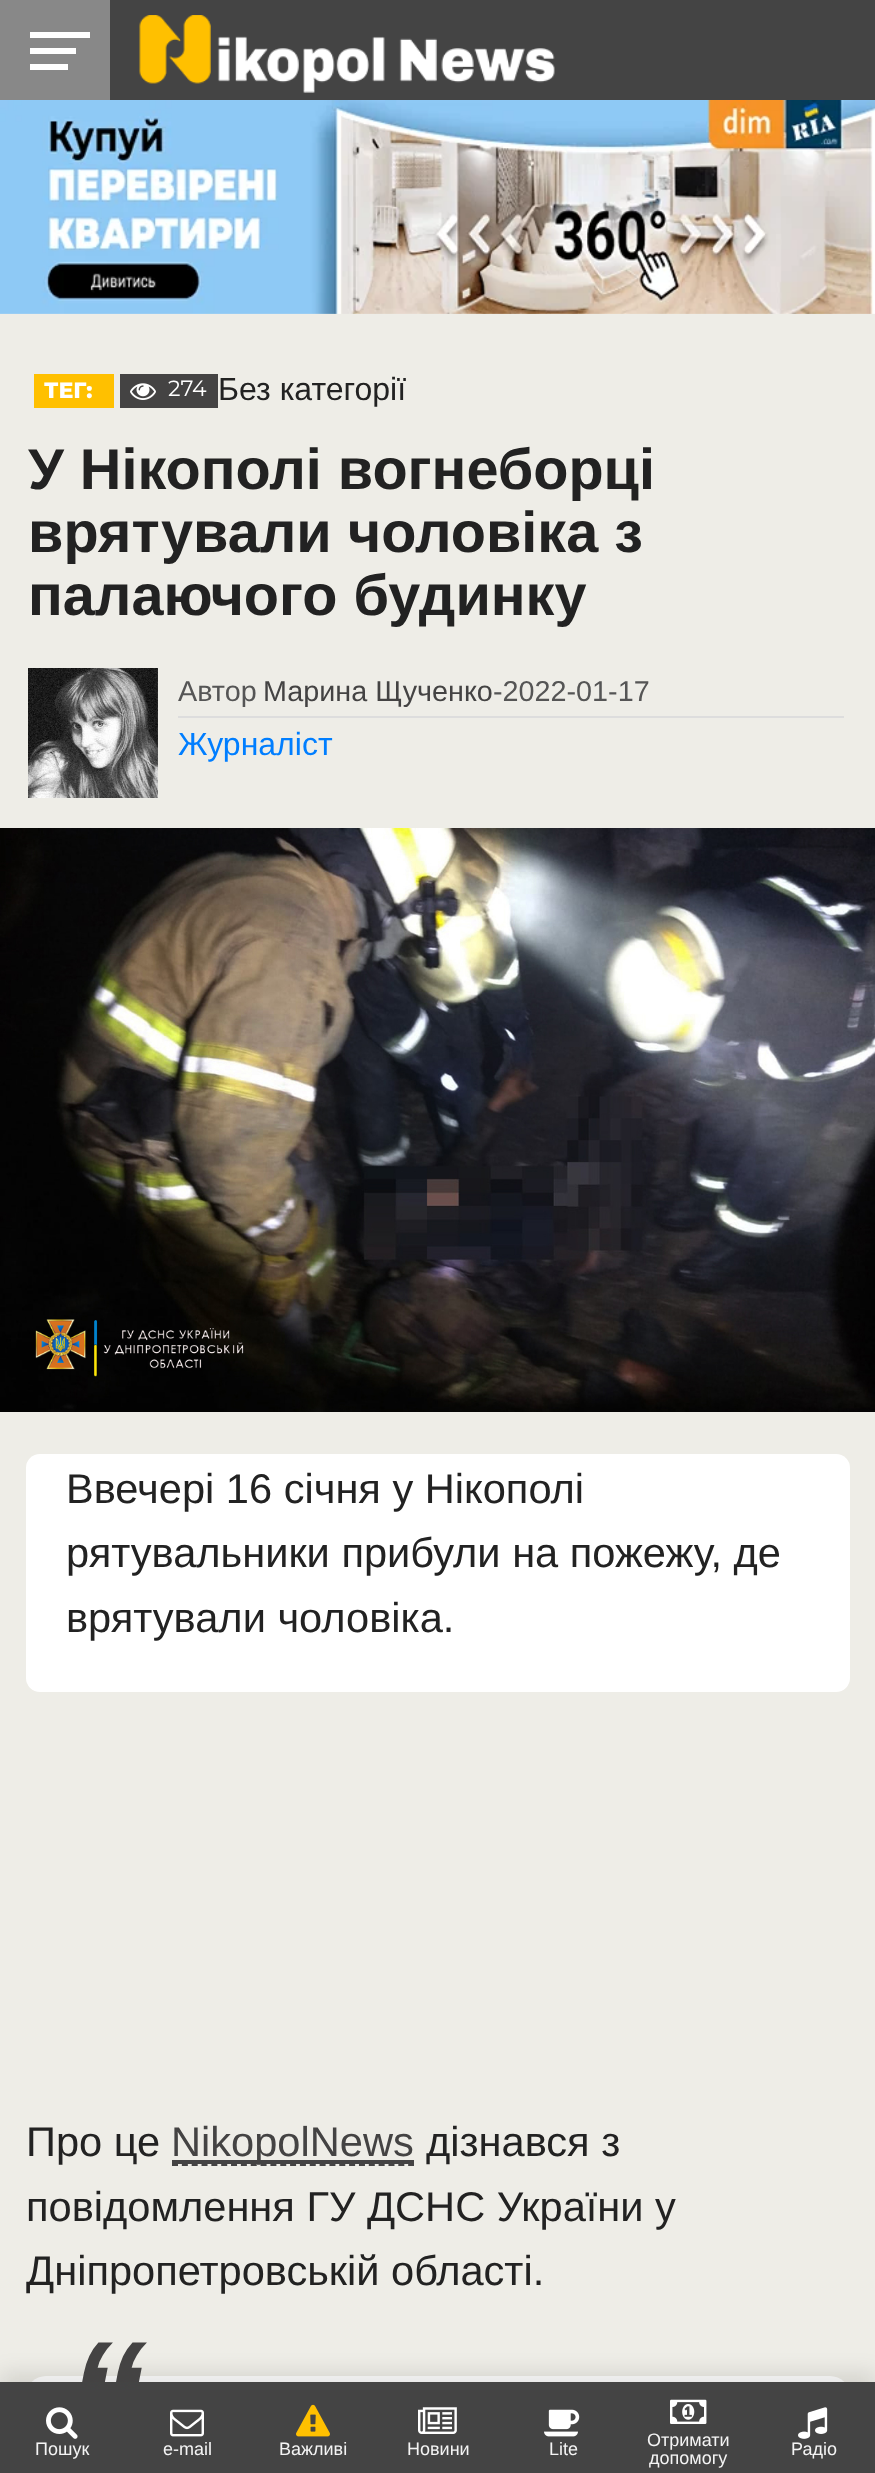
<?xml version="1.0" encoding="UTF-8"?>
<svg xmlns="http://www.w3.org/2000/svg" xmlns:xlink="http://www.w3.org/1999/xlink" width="875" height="2473">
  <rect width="100%" height="100%" fill="#eeede7" />
  <rect x="110" width="765" height="100" fill="#444444" />
  <rect width="110" height="100" fill="#888888" />
  <rect x="30" y="32" width="60" height="6" fill="#ffffff" />
  <rect x="30" y="48" width="46" height="6" fill="#ffffff" />
  <rect x="30" y="64" width="38" height="6" fill="#ffffff" />
  <image x="139" y="15" width="416" height="78" xlink:href="image1.png" />
  <image x="0" y="100" width="875" height="214" xlink:href="image2.png" />
  <rect x="34" y="374" width="80" height="34" fill="#ffc000" />
  <rect x="120" y="374" width="98" height="34" fill="#444343" />
  <image x="130" y="383" width="26" height="17" xlink:href="image3.png" />
  <image x="28" y="668" width="130" height="130" xlink:href="image4.png" />
  <rect x="178" y="716" width="666" height="2" fill="#dddddd" />
  <image x="0" y="828" width="875" height="584" xlink:href="image5.png" />
  <rect x="26" y="1454" width="824" height="238" rx="14" fill="#ffffff" />
  <path d="M 172 2165 h 242" fill="none" stroke="#444343" stroke-width="2" stroke-dasharray="6 3.84" />
  <rect x="172" y="2160" width="242" height="4" fill="#444343" />
  <rect x="26" y="2376" width="824" height="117" rx="20" fill="#ffffff" />
  <rect y="2372" width="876" height="92" fill="#000000" fill-opacity="0.1" filter="blur(10px)" />
  <text x="44" y="398" style="font-family: Montserrat; font-size: 22px; font-weight: 800; fill: #ffffff">ТЕГ:</text>
  <text x="168" y="396" style="font-family: Montserrat; font-size: 22px; fill: #ffffff">274</text>
  <text x="218" y="400" style="font-family: Liberation Sans; font-size: 32px; fill: #222222">Без категорії</text>
  <text x="28" y="489" style="font-family: Liberation Sans; font-size: 57.6px; font-weight: bold; fill: #222222">У Нікополі вогнеборці</text>
  <text x="28" y="552" style="font-family: Liberation Sans; font-size: 57.6px; font-weight: bold; fill: #222222">врятували чоловіка з</text>
  <text x="28" y="615" style="font-family: Liberation Sans; font-size: 57.6px; font-weight: bold; fill: #222222">палаючого будинку</text>
  <text x="178" y="701" style="font-family: Liberation Sans; font-size: 28.75px; fill: #555555">Автор</text>
  <text x="263" y="701" style="font-family: Liberation Sans; font-size: 28.75px; fill: #444343">Марина Щученко</text>
  <text x="493" y="701" style="font-family: Liberation Sans; font-size: 28.75px; fill: #555555">-2022-01-17</text>
  <text x="178" y="755" style="font-family: Liberation Sans; font-size: 32px; fill: #007eff">Журналіст</text>
  <text x="66" y="1503" style="font-family: Liberation Sans; font-size: 41.6px; fill: #222222">Ввечері 16 січня у Нікополі</text>
  <text x="66" y="1567" style="font-family: Liberation Sans; font-size: 41.6px; fill: #222222">рятувальники прибули на пожежу, де</text>
  <text x="66" y="1632" style="font-family: Liberation Sans; font-size: 41.6px; fill: #222222">врятували чоловіка.</text>
  <text x="26" y="2156" style="font-family: Liberation Sans; font-size: 41.6px; fill: #222222">Про це</text>
  <text x="171" y="2156" style="font-family: Liberation Sans; font-size: 41.6px; fill: #444343">NikopolNews</text>
  <text x="426" y="2156" style="font-family: Liberation Sans; font-size: 41.6px; fill: #222222">дізнався з</text>
  <text x="26" y="2221" style="font-family: Liberation Sans; font-size: 41.6px; fill: #222222">повідомлення ГУ ДСНС України у</text>
  <text x="26" y="2285" style="font-family: Liberation Sans; font-size: 41.6px; fill: #222222">Дніпропетровській області.</text>
  <text x="66" y="2454" style="font-family: Liberation Sans; font-size: 162px; font-weight: bold; font-style: italic; fill: #444343">“</text>
  <rect y="2382" width="875" height="91" fill="#444444" />
  <image x="46" y="2407" width="32" height="32" xlink:href="image6.png" />
  <text x="35" y="2455" style="font-family: Liberation Sans; font-size: 18px; fill: #f4f4f4">Пошук</text>
  <image x="170" y="2409" width="34" height="28" xlink:href="image7.png" />
  <text x="163" y="2455" style="font-family: Liberation Sans; font-size: 18px; fill: #f4f4f4">e-mail</text>
  <image x="296" y="2404" width="34" height="33" xlink:href="image8.png" />
  <text x="279" y="2455" style="font-family: Liberation Sans; font-size: 18px; fill: #f4f4f4">Важливі</text>
  <image x="418" y="2407" width="39" height="27" xlink:href="image9.png" />
  <text x="407" y="2455" style="font-family: Liberation Sans; font-size: 18px; fill: #f4f4f4">Новини</text>
  <image x="544" y="2409" width="36" height="28" xlink:href="image10.png" />
  <text x="549" y="2455" style="font-family: Liberation Sans; font-size: 18px; fill: #f4f4f4">Lite</text>
  <image x="670" y="2399" width="37" height="25" xlink:href="image11.png" />
  <text x="647" y="2446" style="font-family: Liberation Sans; font-size: 18px; fill: #f4f4f4">Отримати</text>
  <text x="649" y="2464" style="font-family: Liberation Sans; font-size: 18px; fill: #f4f4f4">допомогу</text>
  <image x="798" y="2407" width="30" height="32" xlink:href="image12.png" />
  <text x="791" y="2455" style="font-family: Liberation Sans; font-size: 18px; fill: #f4f4f4">Радіо</text>
</svg>
